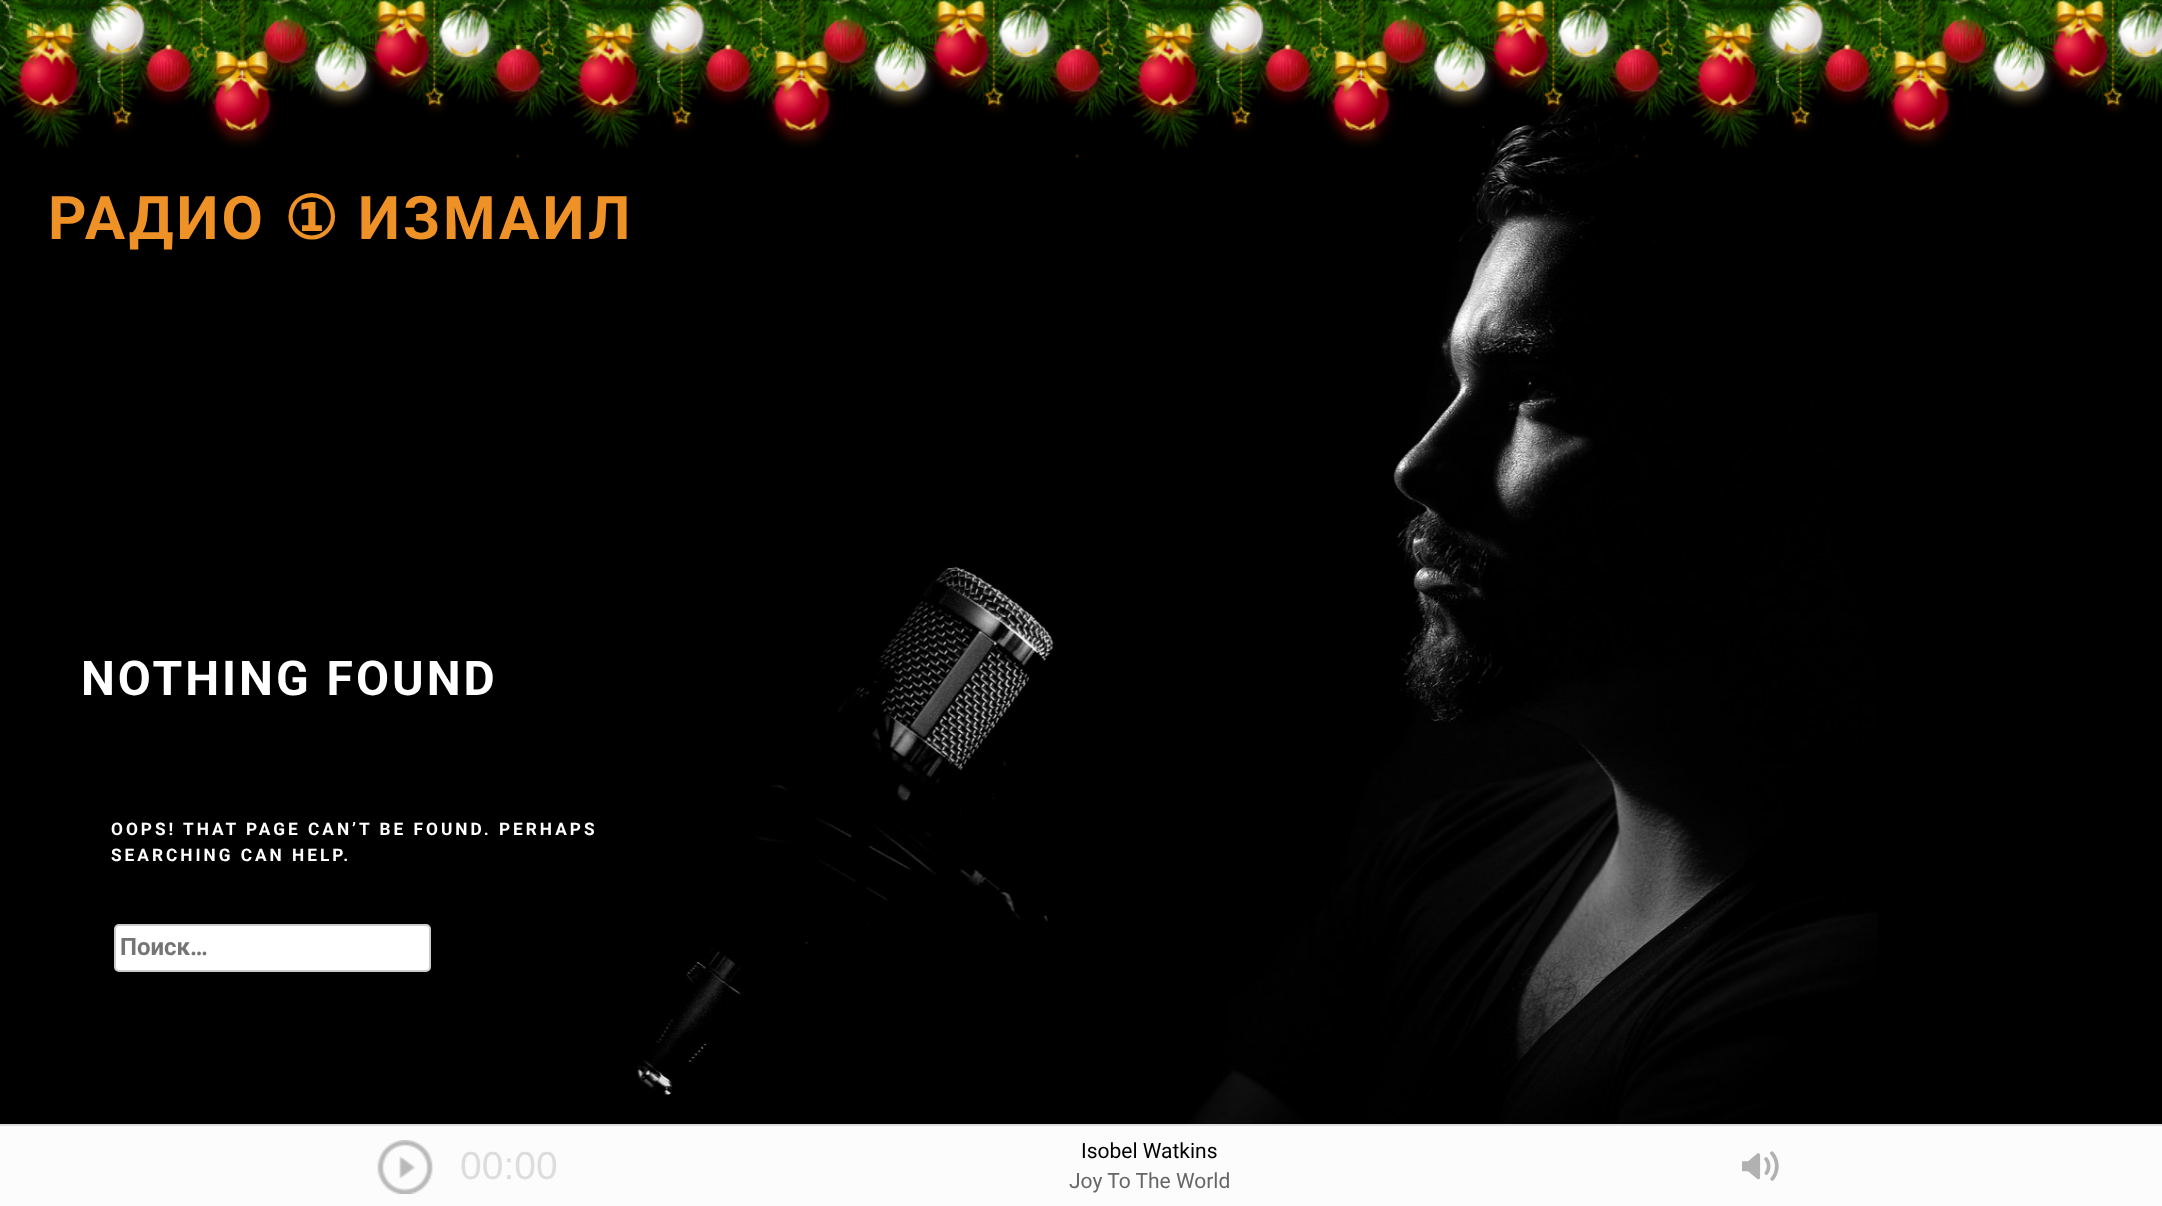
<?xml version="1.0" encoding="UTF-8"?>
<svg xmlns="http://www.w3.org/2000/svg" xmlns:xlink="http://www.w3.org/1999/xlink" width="2162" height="1206">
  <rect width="100%" height="100%" fill="#000000" />
  <image x="626" y="87" width="1252" height="1037" xlink:href="image1.png" />
  <image x="0" y="0" width="2162" height="158" xlink:href="image2.png" />
  <image x="10" y="0" width="75" height="123" xlink:href="image4.png" />
  <image x="0" y="0" width="38" height="107" xlink:href="image3.png" />
  <image x="81" y="0" width="73" height="72" xlink:href="image6.png" />
  <image x="38" y="0" width="91" height="40" xlink:href="image5.png" />
  <image x="205" y="0" width="74" height="148" xlink:href="image7.png" />
  <image x="255" y="0" width="60" height="77" xlink:href="image8.png" />
  <image x="306" y="9" width="69" height="99" xlink:href="image14.png" />
  <image x="265" y="0" width="43" height="46" xlink:href="image9.png" />
  <image x="366" y="0" width="71" height="94" xlink:href="image11.png" />
  <image x="307" y="0" width="76" height="75" xlink:href="image10.png" />
  <image x="431" y="0" width="69" height="74" xlink:href="image12.png" />
  <image x="138" y="13" width="60" height="94" xlink:href="image13.png" />
  <image x="488" y="15" width="60" height="91" xlink:href="image17.png" />
  <image x="433" y="0" width="118" height="42" xlink:href="image15.png" />
  <image x="550" y="0" width="10" height="104" xlink:href="image16.png" />
  <image x="570" y="0" width="75" height="123" xlink:href="image19.png" />
  <image x="559" y="0" width="39" height="106" xlink:href="image18.png" />
  <image x="641" y="0" width="73" height="72" xlink:href="image21.png" />
  <image x="596" y="0" width="92" height="40" xlink:href="image20.png" />
  <image x="765" y="0" width="73" height="148" xlink:href="image22.png" />
  <image x="814" y="0" width="60" height="77" xlink:href="image23.png" />
  <image x="866" y="9" width="69" height="99" xlink:href="image29.png" />
  <image x="824" y="0" width="44" height="46" xlink:href="image24.png" />
  <image x="925" y="0" width="72" height="94" xlink:href="image26.png" />
  <image x="867" y="0" width="75" height="75" xlink:href="image25.png" />
  <image x="990" y="0" width="69" height="74" xlink:href="image27.png" />
  <image x="698" y="13" width="59" height="94" xlink:href="image28.png" />
  <image x="1047" y="15" width="60" height="92" xlink:href="image32.png" />
  <image x="992" y="0" width="119" height="42" xlink:href="image30.png" />
  <image x="1110" y="0" width="9" height="104" xlink:href="image31.png" />
  <image x="1129" y="0" width="75" height="123" xlink:href="image34.png" />
  <image x="1119" y="0" width="38" height="107" xlink:href="image33.png" />
  <image x="1200" y="0" width="73" height="72" xlink:href="image36.png" />
  <image x="1156" y="0" width="92" height="40" xlink:href="image35.png" />
  <image x="1324" y="0" width="74" height="148" xlink:href="image37.png" />
  <image x="1374" y="0" width="60" height="77" xlink:href="image38.png" />
  <image x="1425" y="9" width="69" height="99" xlink:href="image44.png" />
  <image x="1384" y="0" width="43" height="46" xlink:href="image39.png" />
  <image x="1485" y="0" width="71" height="94" xlink:href="image41.png" />
  <image x="1426" y="0" width="76" height="75" xlink:href="image40.png" />
  <image x="1550" y="0" width="69" height="74" xlink:href="image42.png" />
  <image x="1257" y="13" width="60" height="94" xlink:href="image43.png" />
  <image x="1607" y="15" width="60" height="91" xlink:href="image47.png" />
  <image x="1552" y="0" width="118" height="42" xlink:href="image45.png" />
  <image x="1669" y="0" width="10" height="104" xlink:href="image46.png" />
  <image x="1689" y="0" width="75" height="123" xlink:href="image49.png" />
  <image x="1678" y="0" width="39" height="106" xlink:href="image48.png" />
  <image x="1760" y="0" width="73" height="72" xlink:href="image51.png" />
  <image x="1715" y="0" width="92" height="40" xlink:href="image50.png" />
  <image x="1884" y="0" width="73" height="148" xlink:href="image52.png" />
  <image x="1933" y="0" width="60" height="77" xlink:href="image53.png" />
  <image x="1985" y="9" width="69" height="99" xlink:href="image59.png" />
  <image x="1943" y="0" width="44" height="46" xlink:href="image54.png" />
  <image x="2044" y="0" width="72" height="94" xlink:href="image56.png" />
  <image x="1986" y="0" width="75" height="76" xlink:href="image55.png" />
  <image x="2109" y="0" width="53" height="74" xlink:href="image57.png" />
  <image x="1817" y="13" width="59" height="94" xlink:href="image58.png" />
  <image x="2111" y="0" width="51" height="41" xlink:href="image60.png" />
  <rect x="115" y="925" width="315" height="46" rx="4" fill="#ffffff" stroke="#cccccc" stroke-width="2" />
  <rect y="1126" width="2162" height="80" fill="#fcfcfc" />
  <rect y="1124" width="2162" height="2" fill="#dddddd" />
  <image x="377" y="1140" width="56" height="54" xlink:href="image61.png" />
  <image x="1742" y="1151" width="37" height="30" xlink:href="image62.png" />
  <text x="48" y="239" style="font-family: Roboto; font-size: 60px; font-weight: bold; letter-spacing: 3px; fill: #ee9127">РАДИО</text>
  <text x="284" y="239" style="font-family: DejaVu Sans; font-size: 60px; font-weight: bold; letter-spacing: 3px; fill: #ee9127">①</text>
  <text x="358" y="239" style="font-family: Roboto; font-size: 60px; font-weight: bold; letter-spacing: 3px; fill: #ee9127">ИЗМАИЛ</text>
  <text x="81" y="695" style="font-family: Roboto; font-size: 48px; font-weight: bold; letter-spacing: 3px; fill: #ffffff">NOTHING FOUND</text>
  <text x="111" y="835" style="font-family: Roboto; font-size: 17.25px; font-weight: bold; letter-spacing: 3px; fill: #ffffff">OOPS! THAT PAGE CAN’T BE FOUND. PERHAPS</text>
  <text x="111" y="861" style="font-family: Roboto; font-size: 17.25px; font-weight: bold; letter-spacing: 3px; fill: #ffffff">SEARCHING CAN HELP.</text>
  <text x="120" y="955" style="font-family: Roboto; font-size: 24px; font-weight: bold; fill: #757575">Поиск…</text>
  <text x="460" y="1179" style="font-family: Liberation Sans; font-size: 39px; fill: #dddddd">00:00</text>
  <text x="1081" y="1158" style="font-family: Roboto; font-size: 21px; fill: #000000">Isobel Watkins</text>
  <text x="1069" y="1188" style="font-family: Roboto; font-size: 21px; fill: #666666">Joy To The World</text>
</svg>
